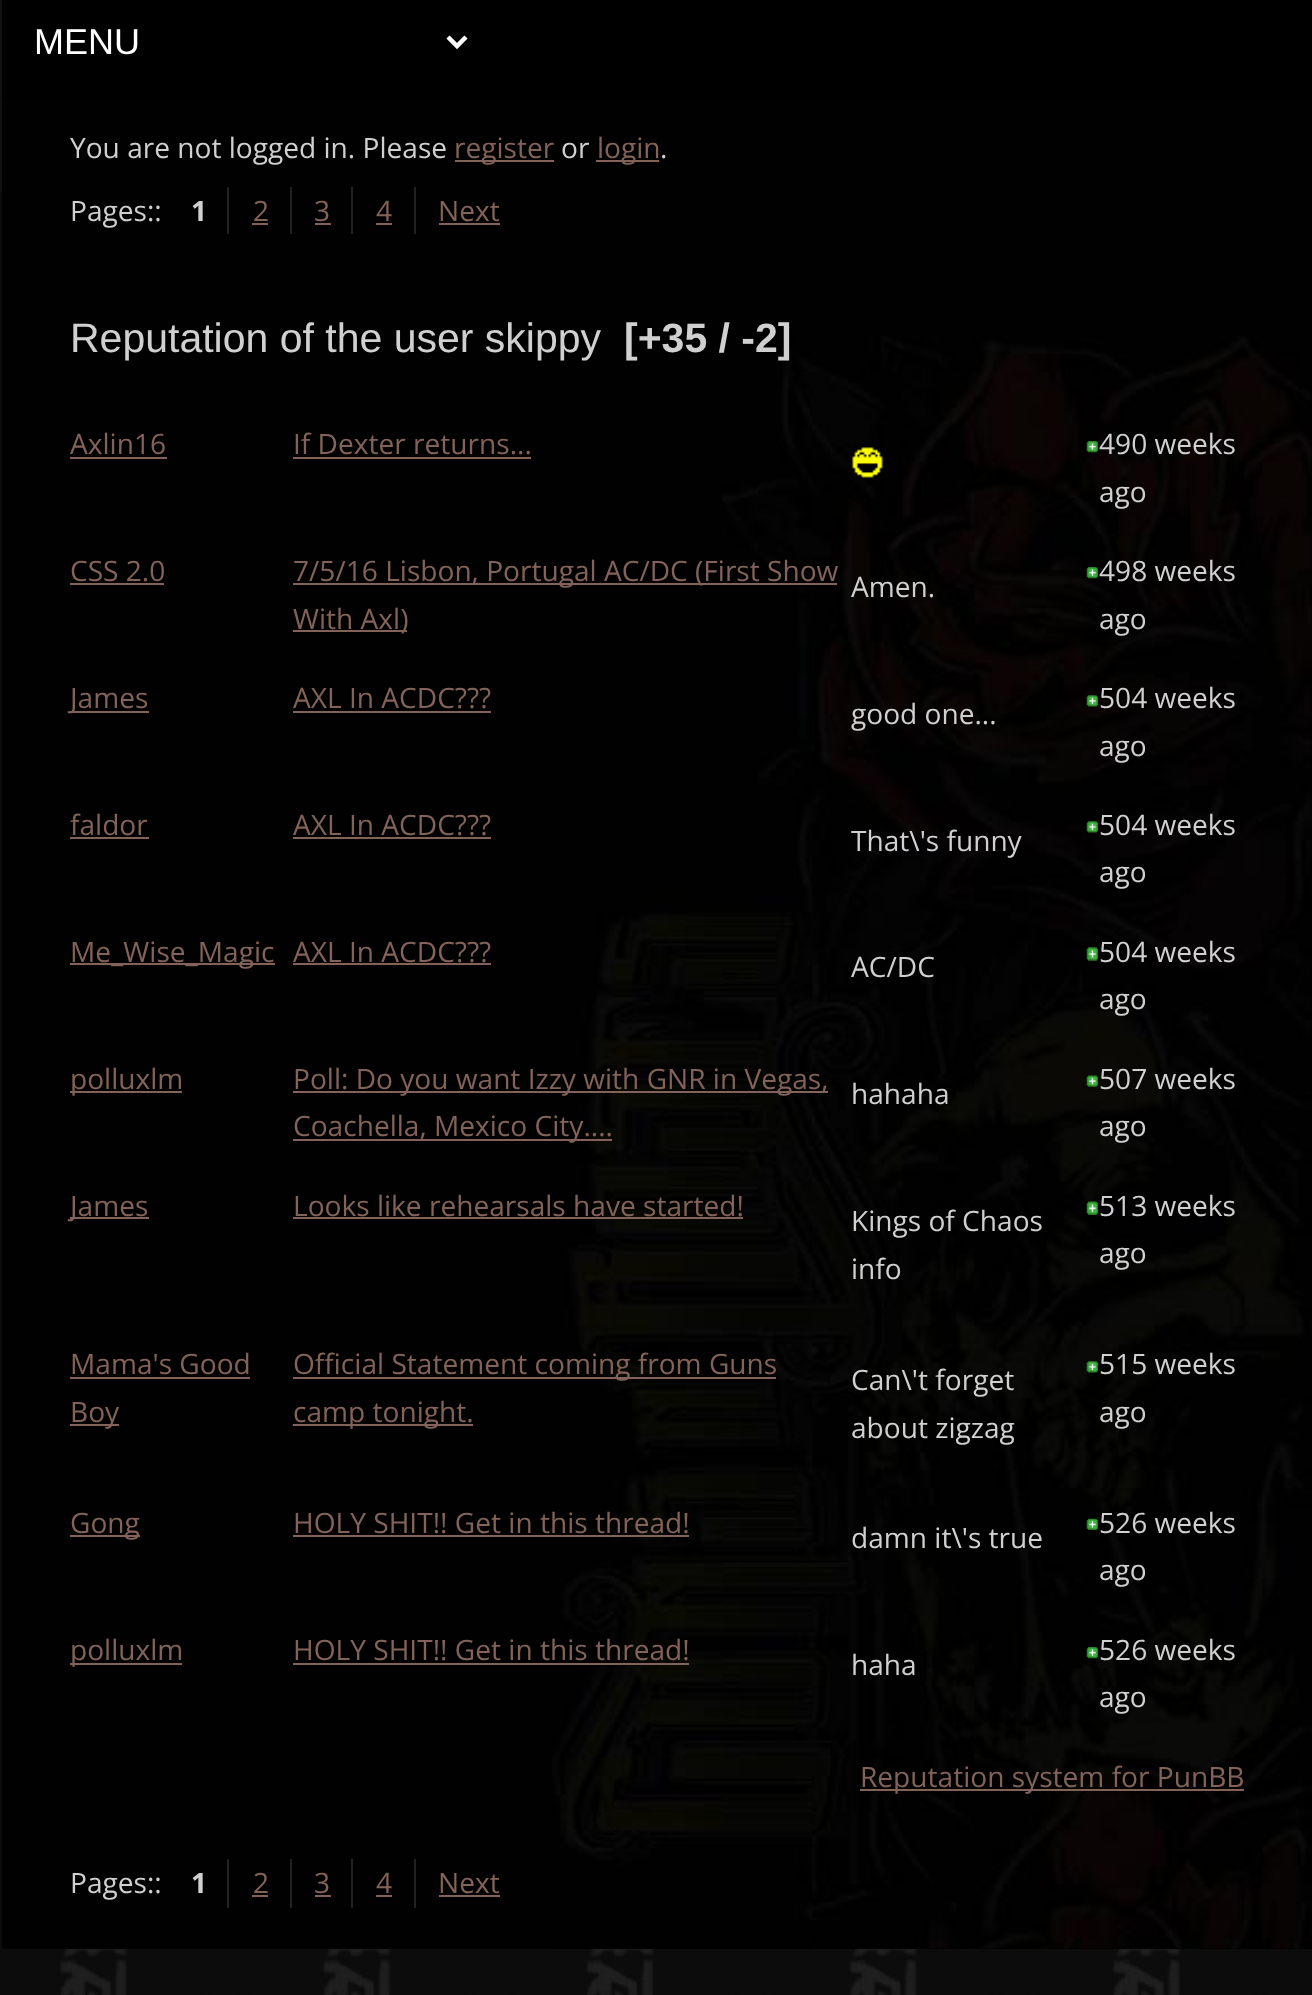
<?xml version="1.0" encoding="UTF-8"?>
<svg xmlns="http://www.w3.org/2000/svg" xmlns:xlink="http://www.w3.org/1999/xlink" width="1312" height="1995">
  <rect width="100%" height="100%" fill="#ffffff" />
  <image x="0" y="191" width="1312" height="1804" xlink:href="image1.png" />
  <rect width="2" height="191" fill="#111111" />
  <rect x="2" width="1310" height="101" fill="#000000" />
  <path d="M 448 37 l 9 9 l 9 -9" fill="none" stroke="#ffffff" stroke-width="4.5" />
  <rect x="2" y="101" width="1310" height="1848" fill="#010101" />
  <image x="552" y="336" width="760" height="1613" xlink:href="image2.png" />
  <rect x="455" y="160" width="99" height="2" fill="#836359" />
  <rect x="596" y="160" width="63" height="2" fill="#836359" />
  <rect x="227" y="187" width="2" height="47" fill="#222222" />
  <rect x="252" y="223" width="16" height="2" fill="#836359" />
  <rect x="290" y="187" width="2" height="47" fill="#222222" />
  <rect x="315" y="223" width="16" height="2" fill="#836359" />
  <rect x="351" y="187" width="2" height="47" fill="#222222" />
  <rect x="376" y="223" width="16" height="2" fill="#836359" />
  <rect x="414" y="187" width="2" height="47" fill="#222222" />
  <rect x="439" y="223" width="61" height="2" fill="#836359" />
  <rect x="70" y="457" width="97" height="2" fill="#836359" />
  <rect x="293" y="457" width="238" height="2" fill="#836359" />
  <image x="852" y="447" width="31" height="31" xlink:href="image3.png" />
  <image x="1086" y="441" width="12" height="12" xlink:href="image4.png" />
  <rect x="70" y="583" width="94" height="2" fill="#836359" />
  <rect x="293" y="583" width="544" height="2" fill="#836359" />
  <rect x="293" y="630" width="114" height="2" fill="#836359" />
  <image x="1086" y="567" width="12" height="12" xlink:href="image5.png" />
  <rect x="70" y="711" width="79" height="2" fill="#836359" />
  <rect x="293" y="711" width="198" height="2" fill="#836359" />
  <image x="1086" y="695" width="12" height="12" xlink:href="image6.png" />
  <rect x="70" y="837" width="79" height="2" fill="#836359" />
  <rect x="293" y="837" width="198" height="2" fill="#836359" />
  <image x="1086" y="821" width="12" height="12" xlink:href="image7.png" />
  <rect x="70" y="963" width="205" height="2" fill="#836359" />
  <rect x="293" y="963" width="198" height="2" fill="#836359" />
  <image x="1086" y="947" width="12" height="14" xlink:href="image8.png" />
  <rect x="70" y="1091" width="112" height="2" fill="#836359" />
  <rect x="293" y="1091" width="535" height="2" fill="#836359" />
  <rect x="293" y="1139" width="319" height="2" fill="#836359" />
  <image x="1086" y="1075" width="12" height="12" xlink:href="image9.png" />
  <rect x="70" y="1217" width="79" height="2" fill="#836359" />
  <rect x="293" y="1217" width="450" height="2" fill="#836359" />
  <image x="1086" y="1201" width="12" height="14" xlink:href="image10.png" />
  <rect x="70" y="1377" width="180" height="2" fill="#836359" />
  <rect x="70" y="1424" width="49" height="2" fill="#836359" />
  <rect x="293" y="1377" width="483" height="2" fill="#836359" />
  <rect x="293" y="1424" width="180" height="2" fill="#836359" />
  <image x="1086" y="1361" width="12" height="12" xlink:href="image11.png" />
  <rect x="70" y="1535" width="70" height="2" fill="#836359" />
  <rect x="293" y="1535" width="396" height="2" fill="#836359" />
  <image x="1086" y="1518" width="12" height="12" xlink:href="image12.png" />
  <rect x="70" y="1663" width="112" height="2" fill="#836359" />
  <rect x="293" y="1663" width="396" height="2" fill="#836359" />
  <image x="1086" y="1647" width="12" height="12" xlink:href="image13.png" />
  <rect x="860" y="1789" width="384" height="2" fill="#836359" />
  <rect x="227" y="1859" width="2" height="49" fill="#222222" />
  <rect x="252" y="1895" width="16" height="2" fill="#836359" />
  <rect x="290" y="1859" width="2" height="49" fill="#222222" />
  <rect x="315" y="1895" width="16" height="2" fill="#836359" />
  <rect x="351" y="1859" width="2" height="49" fill="#222222" />
  <rect x="376" y="1895" width="16" height="2" fill="#836359" />
  <rect x="414" y="1859" width="2" height="49" fill="#222222" />
  <rect x="439" y="1895" width="61" height="2" fill="#836359" />
  <text x="34" y="54" style="font-family: Liberation Sans; font-size: 36px; fill: #ffffff">MENU</text>
  <text x="70" y="158" style="font-family: Open Sans; font-size: 28.1px; fill: #d0d0d0">You are not logged in. Please</text>
  <text x="454" y="158" style="font-family: Open Sans; font-size: 28.1px; fill: #836359">register</text>
  <text x="561" y="158" style="font-family: Open Sans; font-size: 28.1px; fill: #d0d0d0">or</text>
  <text x="597" y="158" style="font-family: Open Sans; font-size: 28.1px; fill: #836359">login</text>
  <text x="660" y="158" style="font-family: Open Sans; font-size: 28.1px; fill: #d0d0d0">.</text>
  <text x="70" y="221" style="font-family: Open Sans; font-size: 28.1px; fill: #d0d0d0">Pages::</text>
  <text x="191" y="221" style="font-family: Open Sans; font-size: 28.1px; font-weight: bold; fill: #d0d0d0">1</text>
  <text x="253" y="221" style="font-family: Open Sans; font-size: 28.1px; fill: #836359">2</text>
  <text x="314" y="221" style="font-family: Open Sans; font-size: 28.1px; fill: #836359">3</text>
  <text x="376" y="221" style="font-family: Open Sans; font-size: 28.1px; fill: #836359">4</text>
  <text x="438" y="221" style="font-family: Open Sans; font-size: 28.1px; fill: #836359">Next</text>
  <text x="70" y="352" style="font-family: Liberation Sans; font-size: 41px; fill: #d0d0d0">Reputation of the user skippy</text>
  <text x="624" y="352" style="font-family: Liberation Sans; font-size: 41px; font-weight: bold; fill: #d0d0d0">[+35 / -2]</text>
  <text x="70" y="454" style="font-family: Open Sans; font-size: 28.1px; fill: #836359">Axlin16</text>
  <text x="293" y="454" style="font-family: Open Sans; font-size: 28.1px; fill: #836359">If Dexter returns...</text>
  <text x="1099" y="454" style="font-family: Open Sans; font-size: 28.1px; fill: #d0d0d0">490 weeks</text>
  <text x="1099" y="502" style="font-family: Open Sans; font-size: 28.1px; fill: #d0d0d0">ago</text>
  <text x="70" y="581" style="font-family: Open Sans; font-size: 28.1px; fill: #836359">CSS 2.0</text>
  <text x="293" y="581" style="font-family: Open Sans; font-size: 28.1px; fill: #836359">7/5/16 Lisbon, Portugal AC/DC</text>
  <text x="695" y="581" style="font-family: Open Sans; font-size: 28.1px; fill: #836359">(First Show</text>
  <text x="293" y="629" style="font-family: Open Sans; font-size: 28.1px; fill: #836359">With Axl)</text>
  <text x="1099" y="581" style="font-family: Open Sans; font-size: 28.1px; fill: #d0d0d0">498 weeks</text>
  <text x="1099" y="629" style="font-family: Open Sans; font-size: 28.1px; fill: #d0d0d0">ago</text>
  <text x="851" y="597" style="font-family: Open Sans; font-size: 28.1px; fill: #d0d0d0">Amen.</text>
  <text x="70" y="708" style="font-family: Open Sans; font-size: 28.1px; fill: #836359">James</text>
  <text x="293" y="708" style="font-family: Open Sans; font-size: 28.1px; fill: #836359">AXL In ACDC???</text>
  <text x="851" y="724" style="font-family: Open Sans; font-size: 28.1px; fill: #d0d0d0">good one...</text>
  <text x="1099" y="708" style="font-family: Open Sans; font-size: 28.1px; fill: #d0d0d0">504 weeks</text>
  <text x="1099" y="756" style="font-family: Open Sans; font-size: 28.1px; fill: #d0d0d0">ago</text>
  <text x="70" y="835" style="font-family: Open Sans; font-size: 28.1px; fill: #836359">faldor</text>
  <text x="293" y="835" style="font-family: Open Sans; font-size: 28.1px; fill: #836359">AXL In ACDC???</text>
  <text x="1099" y="835" style="font-family: Open Sans; font-size: 28.1px; fill: #d0d0d0">504 weeks</text>
  <text x="1099" y="882" style="font-family: Open Sans; font-size: 28.1px; fill: #d0d0d0">ago</text>
  <text x="851" y="851" style="font-family: Open Sans; font-size: 28.1px; fill: #d0d0d0">That\'s funny</text>
  <text x="70" y="962" style="font-family: Open Sans; font-size: 28.1px; fill: #836359">Me_Wise_Magic</text>
  <text x="293" y="962" style="font-family: Open Sans; font-size: 28.1px; fill: #836359">AXL In ACDC???</text>
  <text x="1099" y="962" style="font-family: Open Sans; font-size: 28.1px; fill: #d0d0d0">504 weeks</text>
  <text x="1099" y="1009" style="font-family: Open Sans; font-size: 28.1px; fill: #d0d0d0">ago</text>
  <text x="851" y="977" style="font-family: Open Sans; font-size: 28.1px; fill: #d0d0d0">AC/DC</text>
  <text x="70" y="1089" style="font-family: Open Sans; font-size: 28.1px; fill: #836359">polluxlm</text>
  <text x="293" y="1089" style="font-family: Open Sans; font-size: 28.1px; fill: #836359">Poll: Do you want Izzy with GNR in Vegas,</text>
  <text x="293" y="1136" style="font-family: Open Sans; font-size: 28.1px; fill: #836359">Coachella, Mexico City....</text>
  <text x="851" y="1104" style="font-family: Open Sans; font-size: 28.1px; fill: #d0d0d0">hahaha</text>
  <text x="1099" y="1089" style="font-family: Open Sans; font-size: 28.1px; fill: #d0d0d0">507 weeks</text>
  <text x="1099" y="1136" style="font-family: Open Sans; font-size: 28.1px; fill: #d0d0d0">ago</text>
  <text x="70" y="1216" style="font-family: Open Sans; font-size: 28.1px; fill: #836359">James</text>
  <text x="293" y="1216" style="font-family: Open Sans; font-size: 28.1px; fill: #836359">Looks like rehearsals have started!</text>
  <text x="851" y="1231" style="font-family: Open Sans; font-size: 28.1px; fill: #d0d0d0">Kings of Chaos</text>
  <text x="851" y="1279" style="font-family: Open Sans; font-size: 28.1px; fill: #d0d0d0">info</text>
  <text x="1099" y="1216" style="font-family: Open Sans; font-size: 28.1px; fill: #d0d0d0">513 weeks</text>
  <text x="1099" y="1263" style="font-family: Open Sans; font-size: 28.1px; fill: #d0d0d0">ago</text>
  <text x="70" y="1374" style="font-family: Open Sans; font-size: 28.1px; fill: #836359">Mama's Good</text>
  <text x="70" y="1422" style="font-family: Open Sans; font-size: 28.1px; fill: #836359">Boy</text>
  <text x="293" y="1374" style="font-family: Open Sans; font-size: 28.1px; fill: #836359">Official Statement coming from Guns</text>
  <text x="293" y="1422" style="font-family: Open Sans; font-size: 28.1px; fill: #836359">camp tonight.</text>
  <text x="851" y="1390" style="font-family: Open Sans; font-size: 28.1px; fill: #d0d0d0">Can\'t forget</text>
  <text x="851" y="1438" style="font-family: Open Sans; font-size: 28.1px; fill: #d0d0d0">about zigzag</text>
  <text x="1099" y="1374" style="font-family: Open Sans; font-size: 28.1px; fill: #d0d0d0">515 weeks</text>
  <text x="1099" y="1422" style="font-family: Open Sans; font-size: 28.1px; fill: #d0d0d0">ago</text>
  <text x="70" y="1533" style="font-family: Open Sans; font-size: 28.1px; fill: #836359">Gong</text>
  <text x="293" y="1533" style="font-family: Open Sans; font-size: 28.1px; fill: #836359">HOLY SHIT!! Get in this thread!</text>
  <text x="1099" y="1533" style="font-family: Open Sans; font-size: 28.1px; fill: #d0d0d0">526 weeks</text>
  <text x="1099" y="1580" style="font-family: Open Sans; font-size: 28.1px; fill: #d0d0d0">ago</text>
  <text x="851" y="1548" style="font-family: Open Sans; font-size: 28.1px; fill: #d0d0d0">damn it\'s true</text>
  <text x="70" y="1660" style="font-family: Open Sans; font-size: 28.1px; fill: #836359">polluxlm</text>
  <text x="293" y="1660" style="font-family: Open Sans; font-size: 28.1px; fill: #836359">HOLY SHIT!! Get in this thread!</text>
  <text x="851" y="1675" style="font-family: Open Sans; font-size: 28.1px; fill: #d0d0d0">haha</text>
  <text x="1099" y="1660" style="font-family: Open Sans; font-size: 28.1px; fill: #d0d0d0">526 weeks</text>
  <text x="1099" y="1707" style="font-family: Open Sans; font-size: 28.1px; fill: #d0d0d0">ago</text>
  <text x="860" y="1787" style="font-family: Open Sans; font-size: 28.1px; fill: #836359">Reputation system for PunBB</text>
  <text x="70" y="1893" style="font-family: Open Sans; font-size: 28.1px; fill: #d0d0d0">Pages::</text>
  <text x="191" y="1893" style="font-family: Open Sans; font-size: 28.1px; font-weight: bold; fill: #d0d0d0">1</text>
  <text x="253" y="1893" style="font-family: Open Sans; font-size: 28.1px; fill: #836359">2</text>
  <text x="314" y="1893" style="font-family: Open Sans; font-size: 28.1px; fill: #836359">3</text>
  <text x="376" y="1893" style="font-family: Open Sans; font-size: 28.1px; fill: #836359">4</text>
  <text x="438" y="1893" style="font-family: Open Sans; font-size: 28.1px; fill: #836359">Next</text>
</svg>
